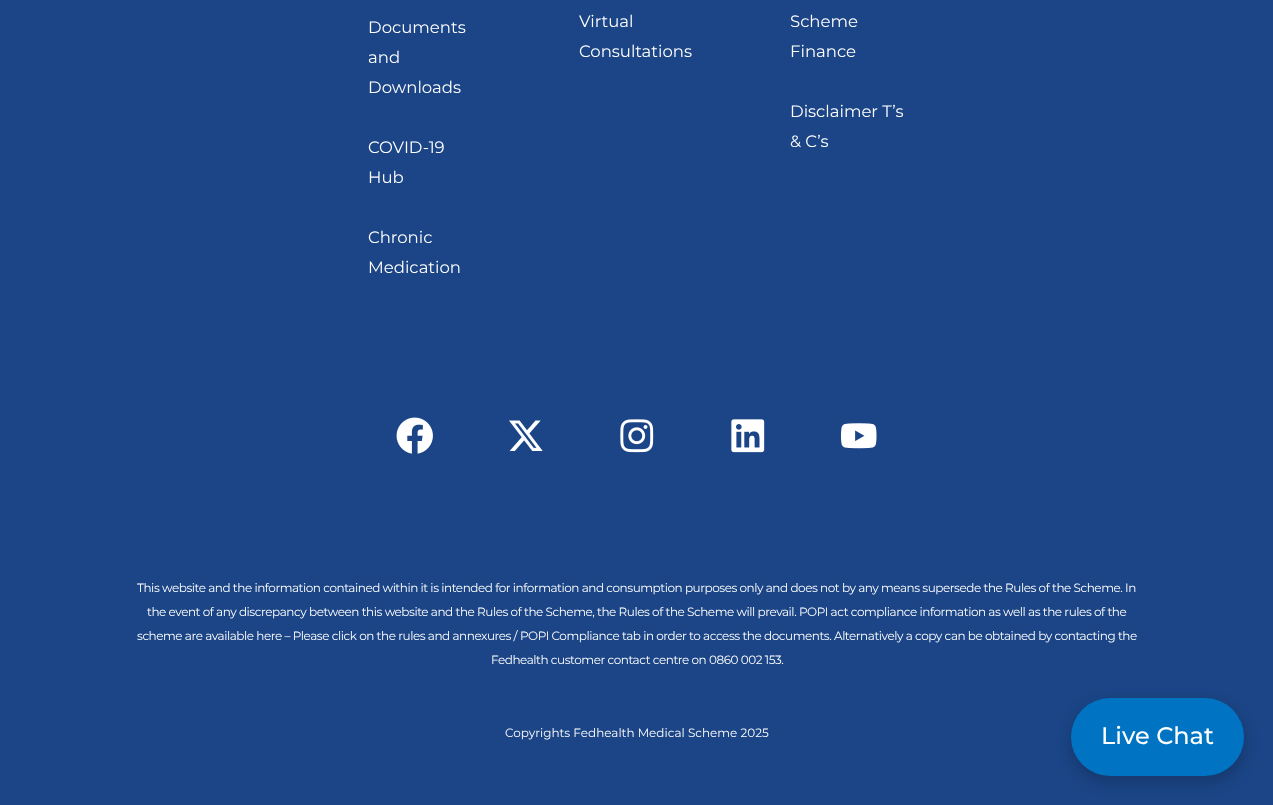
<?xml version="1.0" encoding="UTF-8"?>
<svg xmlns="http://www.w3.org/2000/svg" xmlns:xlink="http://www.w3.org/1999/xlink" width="1273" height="805">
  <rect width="100%" height="100%" fill="#1b4586" />
  <image x="396" y="417" width="37" height="37" xlink:href="image1.png" />
  <image x="509" y="420" width="34" height="31" xlink:href="image2.png" />
  <image x="620" y="419" width="34" height="34" xlink:href="image3.png" />
  <image x="731" y="419" width="34" height="34" xlink:href="image4.png" />
  <image x="841" y="423" width="36" height="26" xlink:href="image5.png" />
  <rect x="1071" y="704" width="173" height="78" rx="39" fill="#000000" fill-opacity="0.2" filter="blur(7.5px)" />
  <rect x="1071" y="698" width="173" height="78" rx="39" fill="#0074c2" />
  <text x="368" y="33" style="font-family: Montserrat; font-size: 16.5px; fill: #ffffff">Documents</text>
  <text x="368" y="63" style="font-family: Montserrat; font-size: 16.5px; fill: #ffffff">and</text>
  <text x="368" y="93" style="font-family: Montserrat; font-size: 16.5px; fill: #ffffff">Downloads</text>
  <text x="368" y="153" style="font-family: Montserrat; font-size: 16.5px; fill: #ffffff">COVID-19</text>
  <text x="368" y="183" style="font-family: Montserrat; font-size: 16.5px; fill: #ffffff">Hub</text>
  <text x="368" y="243" style="font-family: Montserrat; font-size: 16.5px; fill: #ffffff">Chronic</text>
  <text x="368" y="273" style="font-family: Montserrat; font-size: 16.5px; fill: #ffffff">Medication</text>
  <text x="579" y="27" style="font-family: Montserrat; font-size: 16.5px; fill: #ffffff">Virtual</text>
  <text x="579" y="57" style="font-family: Montserrat; font-size: 16.5px; fill: #ffffff">Consultations</text>
  <text x="790" y="27" style="font-family: Montserrat; font-size: 16.5px; fill: #ffffff">Scheme</text>
  <text x="790" y="57" style="font-family: Montserrat; font-size: 16.5px; fill: #ffffff">Finance</text>
  <text x="790" y="117" style="font-family: Montserrat; font-size: 16.5px; fill: #ffffff">Disclaimer T’s</text>
  <text x="790" y="147" style="font-family: Montserrat; font-size: 16.5px; fill: #ffffff">&amp; C’s</text>
  <text x="137" y="592" style="font-family: Montserrat; font-size: 12px; letter-spacing: -0.45px; fill: #ffffff">This website and the information contained within it is intended for information and consumption purposes only and does not by any means supersede the Rules of the Scheme. In</text>
  <text x="147" y="616" style="font-family: Montserrat; font-size: 12px; letter-spacing: -0.45px; fill: #ffffff">the event of any discrepancy between this website and the Rules of the Scheme, the Rules of the Scheme will prevail. POPI act compliance information as well as the rules of the</text>
  <text x="137" y="640" style="font-family: Montserrat; font-size: 12px; letter-spacing: -0.45px; fill: #ffffff">scheme are available here – Please click on the rules and annexures / POPI Compliance tab in order to access the documents. Alternatively a copy can be obtained by contacting the</text>
  <text x="491" y="664" style="font-family: Montserrat; font-size: 12px; letter-spacing: -0.45px; fill: #ffffff">Fedhealth customer contact centre on 0860 002 153.</text>
  <text x="505" y="737" style="font-family: Montserrat; font-size: 12px; fill: #ffffff">Copyrights Fedhealth Medical Scheme 2025</text>
  <text x="1101" y="744" style="font-family: Montserrat; font-size: 24px; font-weight: 500; fill: #ffffff">Live Chat</text>
</svg>
